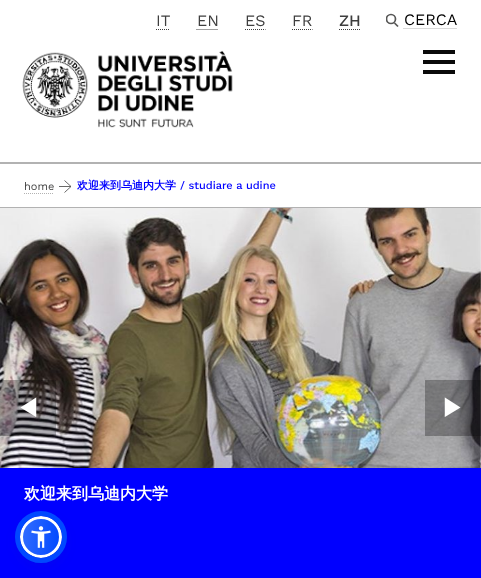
<?xml version="1.0" encoding="UTF-8"?>
<svg xmlns="http://www.w3.org/2000/svg" xmlns:xlink="http://www.w3.org/1999/xlink" width="481" height="578">
  <defs>
    <clipPath id="clip1"><rect x="386" y="13" width="13" height="15" /></clipPath>
    <clipPath id="clip2"><rect x="20" y="516" width="42" height="42" rx="21" /></clipPath>
    <linearGradient id="g1" gradientUnits="userSpaceOnUse" x1="21" y1="535" x2="61" y2="539"><stop offset="0" stop-color="#326cff" /><stop offset="1" stop-color="#0048ff" /></linearGradient>
  </defs>
  <rect width="100%" height="100%" fill="#ffffff" />
  <rect y="162" width="481" height="2" fill="#b2b2b2" />
  <path d="M 156 29.5 h 14" fill="none" stroke="#3e3e3e" stroke-dasharray="1 1" />
  <path d="M 196.5 29.5 h 22" fill="none" stroke="#3e3e3e" stroke-dasharray="1 1" />
  <path d="M 245 29.5 h 20.5" fill="none" stroke="#3e3e3e" stroke-dasharray="1 1" />
  <path d="M 292 29.5 h 20.5" fill="none" stroke="#3e3e3e" stroke-dasharray="1 1" />
  <path d="M 339 29.5 h 21.5" fill="none" stroke="#3e3e3e" stroke-dasharray="1 1" />
  <g clip-path="url(#clip1)">
    <circle cx="391" cy="19" r="4.5" fill="none" stroke="#575756" stroke-width="1.7" />
  </g>
  <path d="M 394.5 23 l 3.5 3.5" fill="none" stroke="#575756" stroke-width="1.7" />
  <path d="M 403.5 28.5 h 53.5" fill="none" stroke="#b2b2b2" stroke-dasharray="1 1" />
  <image x="22" y="50" width="211" height="78" xlink:href="image1.png" />
  <rect x="423" y="50" width="32" height="4" fill="#0a0a0a" />
  <rect x="423" y="60" width="32" height="4" fill="#0a0a0a" />
  <rect x="423" y="70" width="32" height="4" fill="#0a0a0a" />
  <rect y="207" width="481" height="1" fill="#b2b2b2" />
  <path d="M 24 193.5 h 30" fill="none" stroke="#b2b2b2" stroke-dasharray="1 1" />
  <rect x="59" y="186" width="12" height="1" fill="#686867" />
  <path d="M 64.5 180.5 l 6.5 6 l -6.5 6" fill="none" stroke="#575756" stroke-width="0.9" />
  <image x="0" y="208" width="481" height="260" xlink:href="image2.png" />
  <rect y="380" width="56" height="56" fill="#0a0a0a" fill-opacity="0.3" />
  <rect x="425" y="380" width="56" height="56" fill="#0a0a0a" fill-opacity="0.3" />
  <rect y="468" width="481" height="110" fill="#0000ff" />
  <rect x="20" y="518" width="42" height="42" rx="21" fill="#5d6494" fill-opacity="0.2" filter="blur(2px)" />
  <rect x="20" y="521" width="42" height="42" rx="21" fill="#252c61" fill-opacity="0.15" filter="blur(7.5px)" />
  <g clip-path="url(#clip2)">
    <rect x="23" y="519" width="36" height="36" fill="url(#g1)" />
  </g>
  <circle cx="41" cy="537" r="19.5" fill="none" stroke="#ffffff" stroke-width="3" />
  <circle cx="41" cy="537" r="23.5" fill="none" stroke="#0048ff" stroke-width="5" />
  <image x="31" y="526" width="20" height="22" xlink:href="image3.png" />
  <text x="156" y="26" style="font-family: Work Sans; font-size: 16px; fill: #3e3e3e">IT</text>
  <text x="197" y="26" style="font-family: Work Sans; font-size: 16px; fill: #3e3e3e">EN</text>
  <text x="245" y="26" style="font-family: Work Sans; font-size: 16px; fill: #3e3e3e">ES</text>
  <text x="292" y="26" style="font-family: Work Sans; font-size: 16px; fill: #3e3e3e">FR</text>
  <text x="339" y="26" style="font-family: Work Sans; font-size: 16px; font-weight: 500; fill: #3e3e3e">ZH</text>
  <text x="404" y="25" style="font-family: Work Sans; font-size: 16px; fill: #000000">CERCA</text>
  <text x="24" y="190" style="font-family: Work Sans; font-size: 11px; fill: #3e3e3e">home</text>
  <text x="77" y="189" style="font-family: WenQuanYi Zen Hei; font-size: 11px; font-weight: bold; fill: #0000ff">欢迎来到乌迪内大学</text>
  <text x="180" y="189" style="font-family: Work Sans; font-size: 11px; font-weight: 500; fill: #0000ff">/ studiare a udine</text>
  <text x="16" y="416" style="font-family: WenQuanYi Zen Hei; font-size: 24px; font-weight: 500; fill: #fefefe">◀︎</text>
  <text x="441" y="416" style="font-family: WenQuanYi Zen Hei; font-size: 24px; font-weight: 500; fill: #fefefe">▶︎</text>
  <text x="24" y="499" style="font-family: WenQuanYi Zen Hei; font-size: 16px; font-weight: bold; fill: #fefefe">欢迎来到乌迪内大学</text>
</svg>
